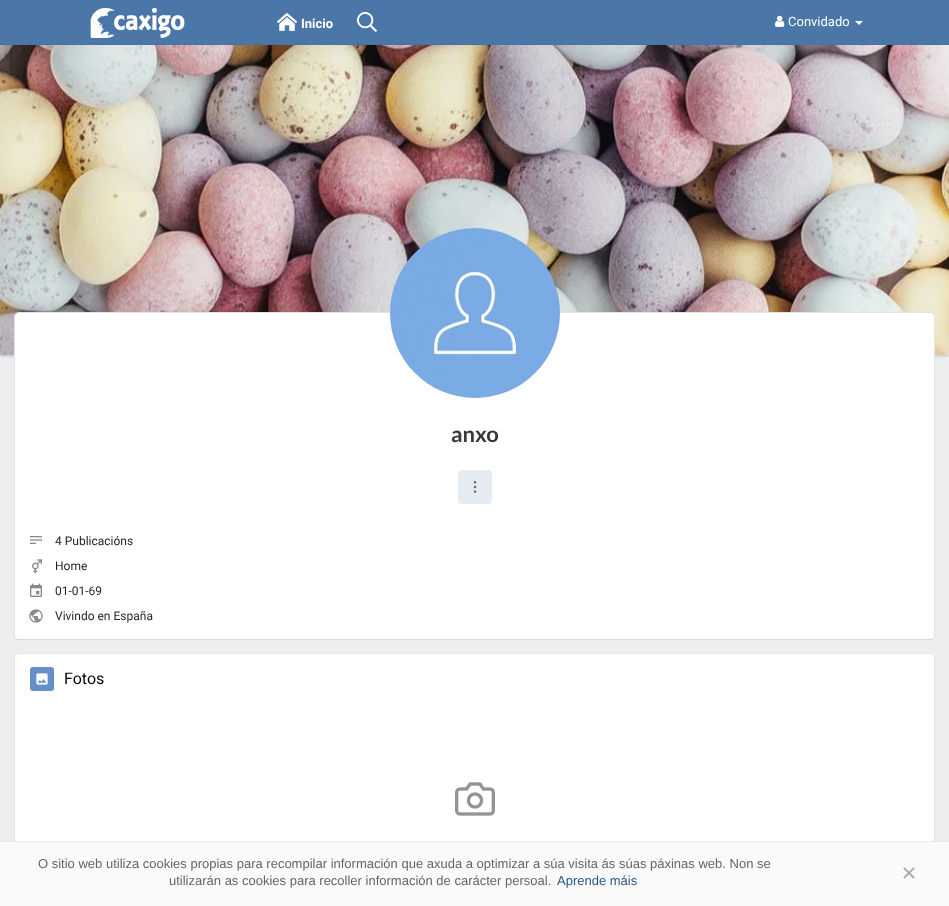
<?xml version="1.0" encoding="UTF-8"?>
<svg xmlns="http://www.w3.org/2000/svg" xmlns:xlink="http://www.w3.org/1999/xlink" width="949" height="906">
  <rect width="100%" height="100%" fill="#edeef0" />
  <rect y="46" width="949" height="310" fill="#000000" fill-opacity="0.2" filter="blur(1.5px)" />
  <rect width="949" height="44" fill="#4a76a8" />
  <rect y="44" width="949" height="1" fill="#4872a3" />
  <image x="90" y="8" width="95" height="30" xlink:href="image1.png" />
  <image x="277" y="13" width="20" height="18" xlink:href="image2.png" />
  <image x="357" y="12" width="20" height="20" xlink:href="image3.png" />
  <image x="775" y="15" width="10" height="12" xlink:href="image4.png" />
  <path d="M 855 21 h 8 l -4 4 z" fill="#ffffff" />
  <image x="0" y="45" width="949" height="310" xlink:href="image5.png" />
  <rect x="14.5" y="312.5" width="920" height="327" rx="4.5" fill="none" stroke="#e3e4e8" />
  <path d="M 15 635 c 0 3 1 5 4 5 h 911 c 3 0 4 -2 4 -5 c 0 2 -2 4 -4 4 h -911 c -2 0 -4 -2 -4 -4 z" fill="#d7d8db" />
  <rect x="15" y="313" width="919" height="326" rx="4" fill="#ffffff" />
  <image x="390" y="228" width="170" height="170" xlink:href="image6.png" />
  <rect x="458" y="470" width="34" height="34" rx="4" fill="#e5ebf1" />
  <image x="473" y="481" width="4" height="12" xlink:href="image7.png" />
  <image x="30" y="536" width="12" height="8" xlink:href="image8.png" />
  <image x="32" y="559" width="10" height="15" xlink:href="image9.png" />
  <image x="30" y="583" width="12" height="14" xlink:href="image10.png" />
  <image x="29" y="609" width="14" height="14" xlink:href="image11.png" />
  <rect x="14.5" y="653.5" width="920" height="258" rx="4.5" fill="none" stroke="#e3e4e8" />
  <rect x="15" y="654" width="919" height="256" rx="4" fill="#ffffff" />
  <rect x="30" y="667" width="24" height="24" rx="3" fill="#648fc9" />
  <image x="36" y="673" width="12" height="12" xlink:href="image12.png" />
  <image x="455" y="782" width="40" height="34" xlink:href="image13.png" />
  <rect y="842" width="949" height="64" fill="#fafafa" />
  <rect y="841" width="949" height="1" fill="#e7e8ec" />
  <image x="903" y="867" width="12" height="12" xlink:href="image14.png" />
  <text x="301" y="28" style="font-family: Roboto; font-size: 13px; font-weight: bold; fill: #ffffff">Inicio</text>
  <text x="788" y="26" style="font-family: Roboto; font-size: 13px; fill: #ffffff">Convidado</text>
  <text x="451" y="442" style="font-family: Lato; font-size: 22px; font-weight: bold; fill: #383838">anxo</text>
  <text x="55" y="545" style="font-family: Roboto; font-size: 12px; fill: #1d2129">4 Publicacións</text>
  <text x="55" y="570" style="font-family: Roboto; font-size: 12px; fill: #1d2129">Home</text>
  <text x="55" y="595" style="font-family: Roboto; font-size: 12px; fill: #1d2129">01-01-69</text>
  <text x="55" y="620" style="font-family: Roboto; font-size: 12px; fill: #1d2129">Vivindo en España</text>
  <text x="64" y="684" style="font-family: Roboto; font-size: 16px; fill: #000000">Fotos</text>
  <text x="38" y="868" style="font-family: Liberation Sans; font-size: 13px; fill: #656565">O sitio web utiliza cookies propias para recompilar información que axuda a optimizar a súa visita ás súas páxinas web. Non se</text>
  <text x="169" y="885" style="font-family: Liberation Sans; font-size: 13px; fill: #656565">utilizarán as cookies para recoller información de carácter persoal.</text>
  <text x="557" y="885" style="font-family: Liberation Sans; font-size: 13px; fill: #2a5885">Aprende máis</text>
</svg>
